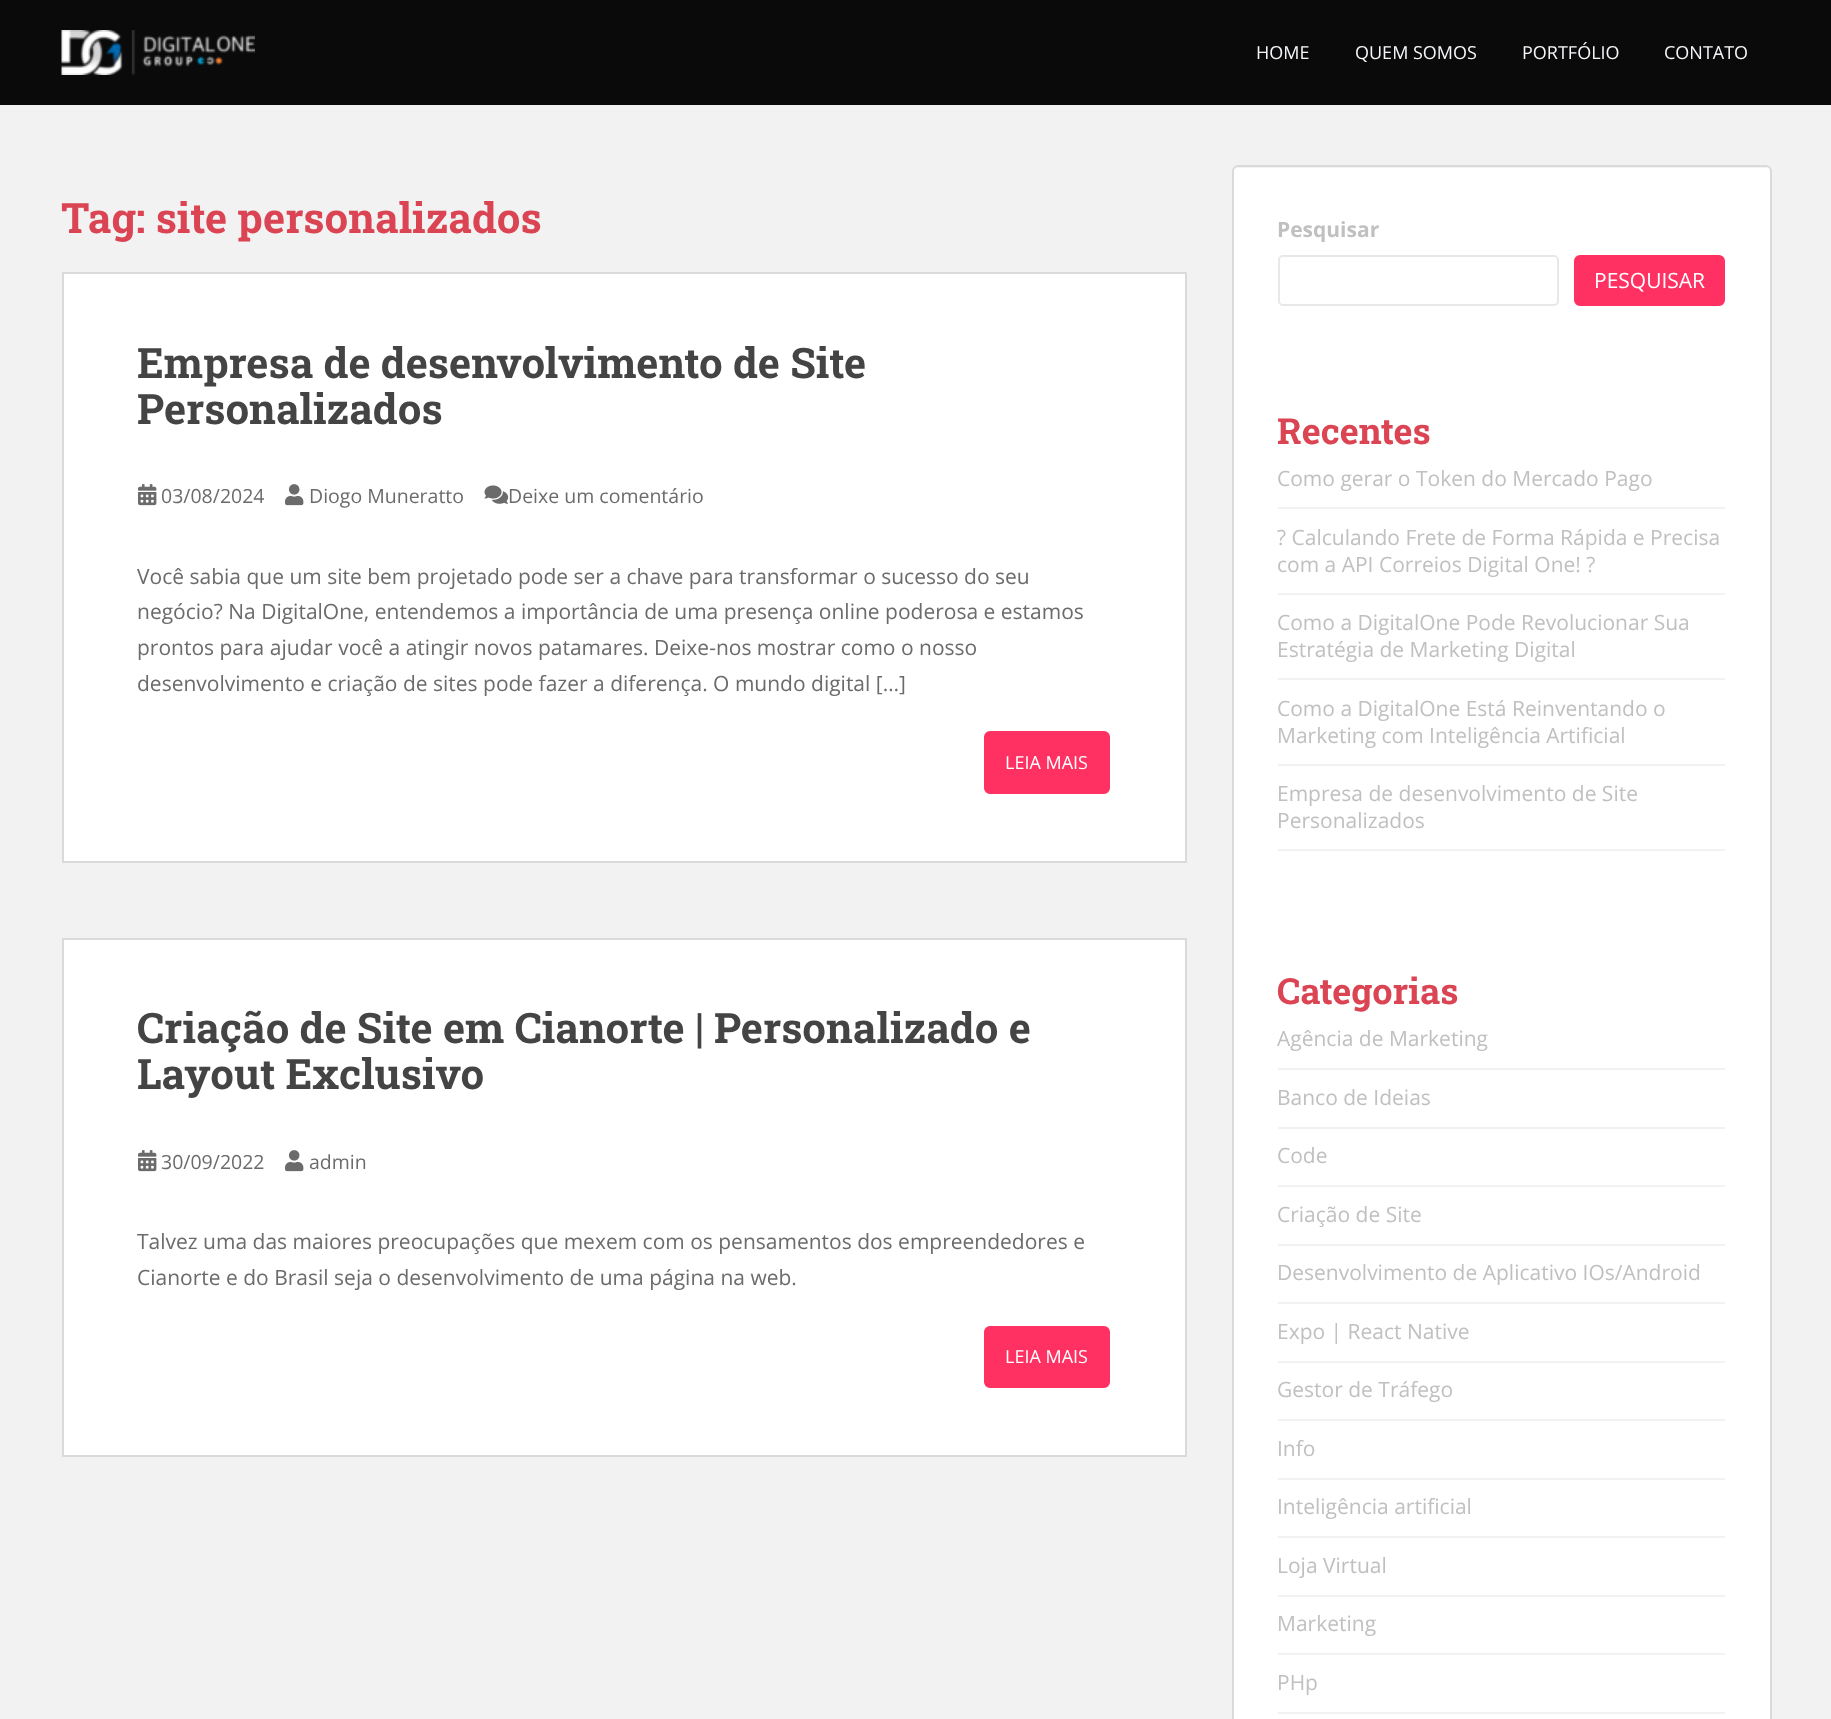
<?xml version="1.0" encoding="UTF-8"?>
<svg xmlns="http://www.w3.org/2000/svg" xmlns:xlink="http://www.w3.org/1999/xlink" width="1831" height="1719">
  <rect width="100%" height="100%" fill="#f2f2f2" />
  <rect width="1831" height="105" fill="#0a0a0a" />
  <image x="61" y="30" width="194" height="45" xlink:href="image1.png" />
  <rect x="63" y="273" width="1123" height="589" fill="#ffffff" stroke="#dadada" stroke-width="2" />
  <image x="138" y="484" width="19" height="22" xlink:href="image2.png" />
  <image x="285" y="484" width="19" height="22" xlink:href="image3.png" />
  <image x="484" y="485" width="25" height="19" xlink:href="image4.png" />
  <rect x="985" y="732" width="124" height="61" rx="5" fill="#ff3062" stroke="#ff3062" stroke-width="2" />
  <rect x="63" y="939" width="1123" height="517" fill="#ffffff" stroke="#dadada" stroke-width="2" />
  <image x="138" y="1150" width="19" height="22" xlink:href="image2.png" />
  <image x="285" y="1150" width="19" height="22" xlink:href="image3.png" />
  <rect x="985" y="1327" width="124" height="60" rx="5" fill="#ff3062" stroke="#ff3062" stroke-width="2" />
  <rect x="1232" y="165" width="540" height="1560" rx="6" fill="#ffffff" />
  <path d="M 1238 168 h 528 c 2 0 4 2 4 4 c 0 -3 -2 -5 -5 -5 h -527 c -3 0 -5 2 -5 5 c 0 -2 2 -4 5 -4 z" fill="#f2f2f2" />
  <rect x="1233" y="166" width="538" height="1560" rx="5" fill="none" stroke="#dadada" stroke-width="2" />
  <rect x="1279" y="256" width="279" height="49" rx="4" fill="none" stroke="#e8e8e8" stroke-width="2" />
  <rect x="1575" y="256" width="149" height="49" rx="5" fill="#ff3062" stroke="#ff3062" stroke-width="2" />
  <rect x="1278" y="507" width="447" height="2" fill="#f2f2f2" />
  <rect x="1278" y="593" width="447" height="2" fill="#f2f2f2" />
  <rect x="1278" y="678" width="447" height="2" fill="#f2f2f2" />
  <rect x="1278" y="764" width="447" height="2" fill="#f2f2f2" />
  <rect x="1278" y="849" width="447" height="2" fill="#f2f2f2" />
  <rect x="1278" y="1068" width="447" height="2" fill="#f2f2f2" />
  <rect x="1278" y="1127" width="447" height="2" fill="#f2f2f2" />
  <rect x="1278" y="1185" width="447" height="2" fill="#f2f2f2" />
  <rect x="1278" y="1244" width="447" height="2" fill="#f2f2f2" />
  <rect x="1278" y="1302" width="447" height="2" fill="#f2f2f2" />
  <rect x="1278" y="1361" width="447" height="2" fill="#f2f2f2" />
  <rect x="1278" y="1419" width="447" height="2" fill="#f2f2f2" />
  <rect x="1278" y="1478" width="447" height="2" fill="#f2f2f2" />
  <rect x="1278" y="1536" width="447" height="2" fill="#f2f2f2" />
  <rect x="1278" y="1595" width="447" height="2" fill="#f2f2f2" />
  <rect x="1278" y="1653" width="447" height="2" fill="#f2f2f2" />
  <rect x="1278" y="1712" width="447" height="2" fill="#f2f2f2" />
  <text x="1256" y="59" style="font-family: Open Sans; font-size: 18px; fill: #f5f7fa">HOME</text>
  <text x="1355" y="59" style="font-family: Open Sans; font-size: 18px; fill: #f5f7fa">QUEM SOMOS</text>
  <text x="1522" y="59" style="font-family: Open Sans; font-size: 18px; fill: #f5f7fa">PORTFÓLIO</text>
  <text x="1664" y="59" style="font-family: Open Sans; font-size: 18px; fill: #f5f7fa">CONTATO</text>
  <text x="61" y="233" style="font-family: Roboto Slab; font-size: 42px; font-weight: bold; fill: #da4453">Tag: site personalizados</text>
  <text x="137" y="378" style="font-family: Roboto Slab; font-size: 42px; font-weight: bold; fill: #444444">Empresa de desenvolvimento de Site</text>
  <text x="137" y="424" style="font-family: Roboto Slab; font-size: 42px; font-weight: bold; fill: #444444">Personalizados</text>
  <text x="161" y="503" style="font-family: Open Sans; font-size: 19.5px; fill: #6b6b6b">03/08/2024</text>
  <text x="309" y="503" style="font-family: Open Sans; font-size: 19.5px; fill: #6b6b6b">Diogo Muneratto</text>
  <text x="508" y="503" style="font-family: Open Sans; font-size: 19.5px; fill: #6b6b6b">Deixe um comentário</text>
  <text x="137" y="584" style="font-family: Open Sans; font-size: 21px; fill: #6b6b6b">Você sabia que um site bem projetado pode ser a chave para transformar o sucesso do seu</text>
  <text x="137" y="619" style="font-family: Open Sans; font-size: 21px; fill: #6b6b6b">negócio? Na DigitalOne, entendemos a importância de uma presença online poderosa e estamos</text>
  <text x="137" y="655" style="font-family: Open Sans; font-size: 21px; fill: #6b6b6b">prontos para ajudar você a atingir novos patamares. Deixe-nos mostrar como o nosso</text>
  <text x="137" y="691" style="font-family: Open Sans; font-size: 21px; fill: #6b6b6b">desenvolvimento e criação de sites pode fazer a diferença. O mundo digital […]</text>
  <text x="1005" y="769" style="font-family: Open Sans; font-size: 18px; fill: #ffffff">LEIA MAIS</text>
  <text x="137" y="1043" style="font-family: Roboto Slab; font-size: 42px; font-weight: bold; fill: #444444">Criação de Site em Cianorte | Personalizado e</text>
  <text x="137" y="1089" style="font-family: Roboto Slab; font-size: 42px; font-weight: bold; fill: #444444">Layout Exclusivo</text>
  <text x="161" y="1169" style="font-family: Open Sans; font-size: 19.5px; fill: #6b6b6b">30/09/2022</text>
  <text x="309" y="1169" style="font-family: Open Sans; font-size: 19.5px; fill: #6b6b6b">admin</text>
  <text x="137" y="1249" style="font-family: Open Sans; font-size: 21px; fill: #6b6b6b">Talvez uma das maiores preocupações que mexem com os pensamentos dos empreendedores e</text>
  <text x="137" y="1285" style="font-family: Open Sans; font-size: 21px; fill: #6b6b6b">Cianorte e do Brasil seja o desenvolvimento de uma página na web.</text>
  <text x="1005" y="1363" style="font-family: Open Sans; font-size: 18px; fill: #ffffff">LEIA MAIS</text>
  <text x="1277" y="237" style="font-family: Open Sans; font-size: 21px; font-weight: bold; fill: #c1c0c0">Pesquisar</text>
  <text x="1594" y="288" style="font-family: Open Sans; font-size: 21px; fill: #ffffff">PESQUISAR</text>
  <text x="1277" y="444" style="font-family: Roboto Slab; font-size: 36px; font-weight: bold; fill: #da4453">Recentes</text>
  <text x="1277" y="486" style="font-family: Open Sans; font-size: 21px; fill: #c1c0c0">Como gerar o Token do Mercado Pago</text>
  <text x="1277" y="545" style="font-family: Open Sans; font-size: 21px; fill: #c1c0c0">? Calculando Frete de Forma Rápida e Precisa</text>
  <text x="1277" y="572" style="font-family: Open Sans; font-size: 21px; fill: #c1c0c0">com a API Correios Digital One! ?</text>
  <text x="1277" y="630" style="font-family: Open Sans; font-size: 21px; fill: #c1c0c0">Como a DigitalOne Pode Revolucionar Sua</text>
  <text x="1277" y="657" style="font-family: Open Sans; font-size: 21px; fill: #c1c0c0">Estratégia de Marketing Digital</text>
  <text x="1277" y="716" style="font-family: Open Sans; font-size: 21px; fill: #c1c0c0">Como a DigitalOne Está Reinventando o</text>
  <text x="1277" y="743" style="font-family: Open Sans; font-size: 21px; fill: #c1c0c0">Marketing com Inteligência Artificial</text>
  <text x="1277" y="801" style="font-family: Open Sans; font-size: 21px; fill: #c1c0c0">Empresa de desenvolvimento de Site</text>
  <text x="1277" y="828" style="font-family: Open Sans; font-size: 21px; fill: #c1c0c0">Personalizados</text>
  <text x="1277" y="1004" style="font-family: Roboto Slab; font-size: 36px; font-weight: bold; fill: #da4453">Categorias</text>
  <text x="1277" y="1046" style="font-family: Open Sans; font-size: 21px; fill: #c1c0c0">Agência de Marketing</text>
  <text x="1277" y="1105" style="font-family: Open Sans; font-size: 21px; fill: #c1c0c0">Banco de Ideias</text>
  <text x="1277" y="1163" style="font-family: Open Sans; font-size: 21px; fill: #c1c0c0">Code</text>
  <text x="1277" y="1222" style="font-family: Open Sans; font-size: 21px; fill: #c1c0c0">Criação de Site</text>
  <text x="1277" y="1280" style="font-family: Open Sans; font-size: 21px; fill: #c1c0c0">Desenvolvimento de Aplicativo IOs/Android</text>
  <text x="1277" y="1339" style="font-family: Open Sans; font-size: 21px; fill: #c1c0c0">Expo | React Native</text>
  <text x="1277" y="1397" style="font-family: Open Sans; font-size: 21px; fill: #c1c0c0">Gestor de Tráfego</text>
  <text x="1277" y="1456" style="font-family: Open Sans; font-size: 21px; fill: #c1c0c0">Info</text>
  <text x="1277" y="1514" style="font-family: Open Sans; font-size: 21px; fill: #c1c0c0">Inteligência artificial</text>
  <text x="1277" y="1573" style="font-family: Open Sans; font-size: 21px; fill: #c1c0c0">Loja Virtual</text>
  <text x="1277" y="1631" style="font-family: Open Sans; font-size: 21px; fill: #c1c0c0">Marketing</text>
  <text x="1277" y="1690" style="font-family: Open Sans; font-size: 21px; fill: #c1c0c0">PHp</text>
</svg>
